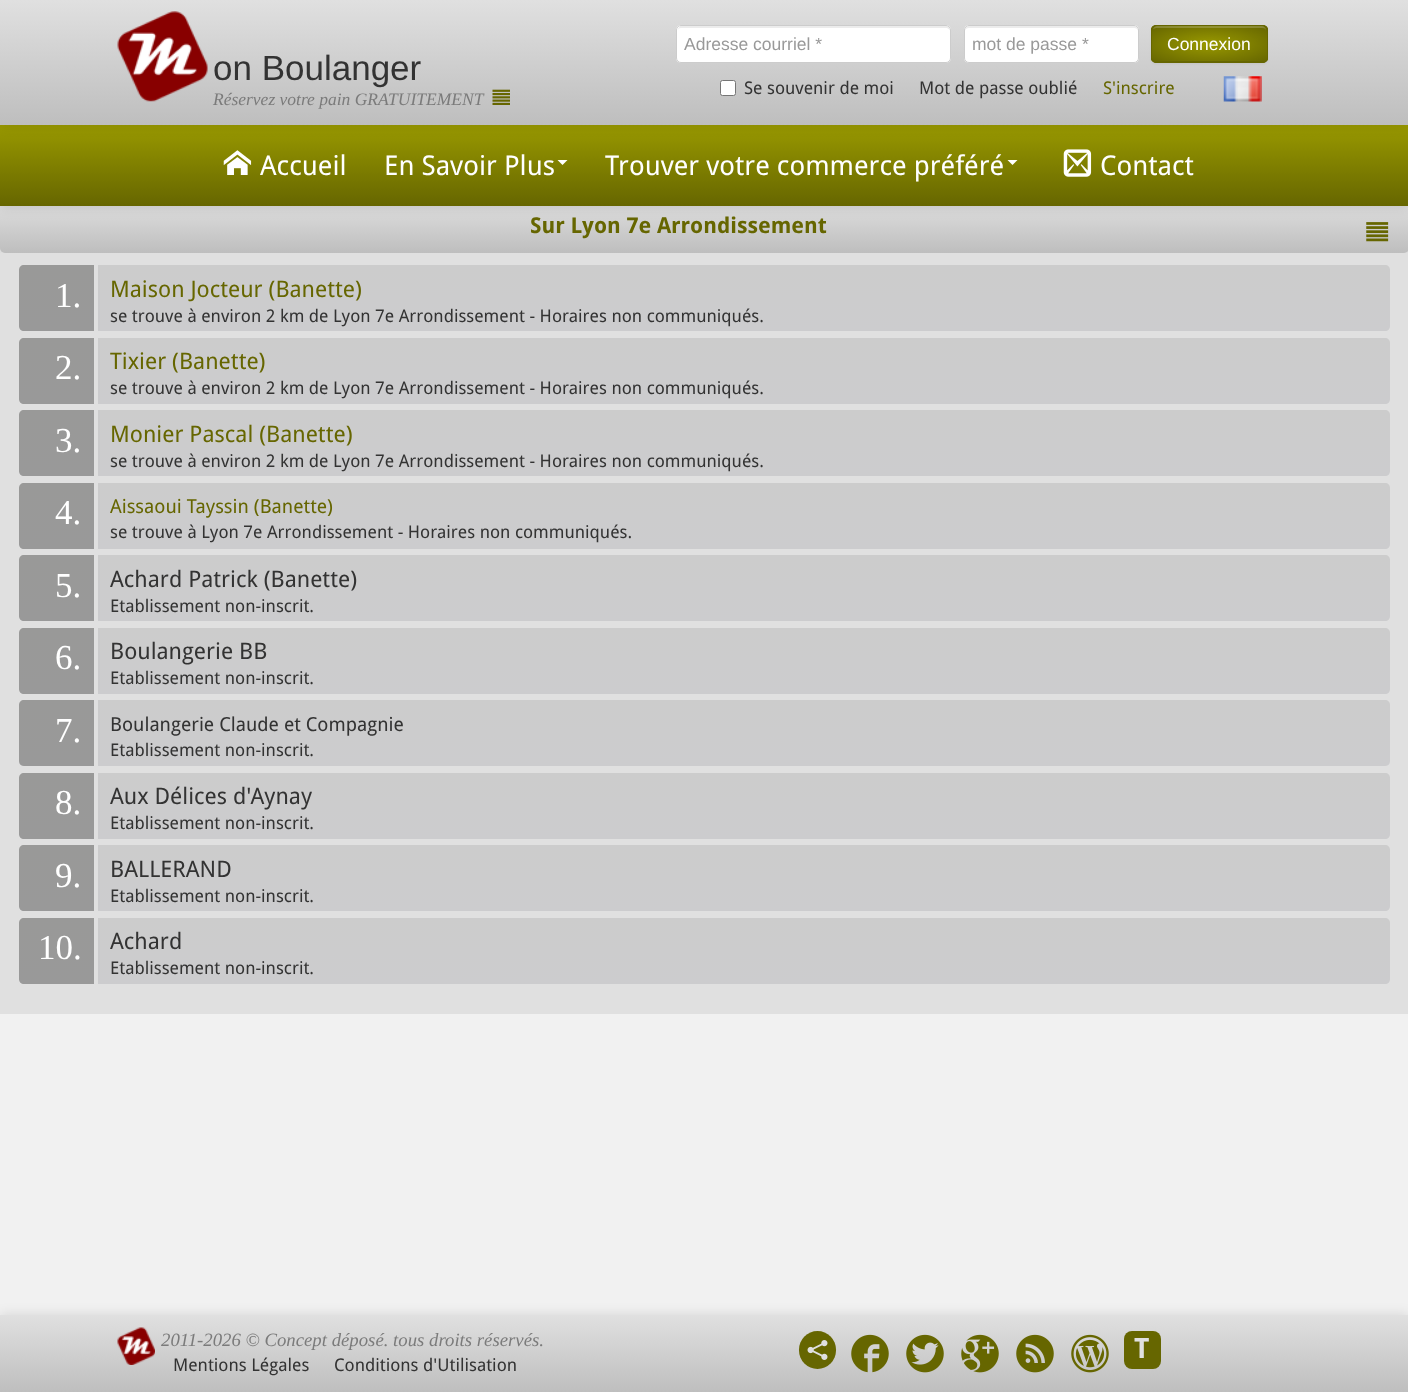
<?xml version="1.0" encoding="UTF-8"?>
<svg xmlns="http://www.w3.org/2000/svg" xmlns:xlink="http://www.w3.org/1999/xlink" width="1408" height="1392">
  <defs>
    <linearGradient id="g1" gradientUnits="userSpaceOnUse" x1="704" y1="200" x2="704" y2="1014"><stop offset="0" stop-color="#e0e0e0" /><stop offset="1" stop-color="#bebebe" /></linearGradient>
    <linearGradient id="g2" gradientUnits="userSpaceOnUse" x1="704" y1="200" x2="704" y2="253"><stop offset="0" stop-color="#e0e0e0" /><stop offset="1" stop-color="#bebebe" /></linearGradient>
    <linearGradient id="g3" gradientUnits="userSpaceOnUse" x1="704" y1="125" x2="704" y2="206"><stop offset="0" stop-color="#999900" /><stop offset="1" stop-color="#666600" /></linearGradient>
    <linearGradient id="g4" gradientUnits="userSpaceOnUse" x1="704" y1="0" x2="704" y2="125"><stop offset="0" stop-color="#e0e0e0" /><stop offset="1" stop-color="#bebebe" /></linearGradient>
    <clipPath id="clip1"><rect x="1151" y="25" width="117" height="38" rx="5" /></clipPath>
    <radialGradient id="g5" gradientUnits="userSpaceOnUse" cx="0" cy="0" r="1" gradientTransform="matrix(80 0 0 25 1096 44)"><stop offset="0" stop-color="#999900" /><stop offset="1" stop-color="#666600" /></radialGradient>
    <radialGradient id="g6" gradientUnits="userSpaceOnUse" cx="0" cy="0" r="1" gradientTransform="matrix(80 0 0 25 1209 44)"><stop offset="0" stop-color="#999900" /><stop offset="1" stop-color="#666600" /></radialGradient>
    <radialGradient id="g7" gradientUnits="userSpaceOnUse" cx="0" cy="0" r="1" gradientTransform="matrix(80 0 0 25 1323 44)"><stop offset="0" stop-color="#999900" /><stop offset="1" stop-color="#666600" /></radialGradient>
    <linearGradient id="g8" gradientUnits="userSpaceOnUse" x1="56" y1="265" x2="56" y2="331"><stop offset="0" stop-color="#999998" /><stop offset="1" stop-color="#999999" /></linearGradient>
    <linearGradient id="g9" gradientUnits="userSpaceOnUse" x1="744" y1="265" x2="744" y2="331"><stop offset="0" stop-color="#cccccc" /><stop offset="1" stop-color="#ccccce" /></linearGradient>
    <linearGradient id="g10" gradientUnits="userSpaceOnUse" x1="56" y1="338" x2="56" y2="404"><stop offset="0" stop-color="#999998" /><stop offset="1" stop-color="#999999" /></linearGradient>
    <linearGradient id="g11" gradientUnits="userSpaceOnUse" x1="744" y1="337" x2="744" y2="404"><stop offset="0" stop-color="#cccccc" /><stop offset="1" stop-color="#ccccce" /></linearGradient>
    <linearGradient id="g12" gradientUnits="userSpaceOnUse" x1="56" y1="410" x2="56" y2="476"><stop offset="0" stop-color="#999998" /><stop offset="1" stop-color="#999999" /></linearGradient>
    <linearGradient id="g13" gradientUnits="userSpaceOnUse" x1="744" y1="410" x2="744" y2="476"><stop offset="0" stop-color="#cccccc" /><stop offset="1" stop-color="#ccccce" /></linearGradient>
    <linearGradient id="g14" gradientUnits="userSpaceOnUse" x1="56" y1="483" x2="56" y2="549"><stop offset="0" stop-color="#999998" /><stop offset="1" stop-color="#999999" /></linearGradient>
    <linearGradient id="g15" gradientUnits="userSpaceOnUse" x1="744" y1="482" x2="744" y2="549"><stop offset="0" stop-color="#cccccc" /><stop offset="1" stop-color="#ccccce" /></linearGradient>
    <linearGradient id="g16" gradientUnits="userSpaceOnUse" x1="56" y1="555" x2="56" y2="621"><stop offset="0" stop-color="#999998" /><stop offset="1" stop-color="#999999" /></linearGradient>
    <linearGradient id="g17" gradientUnits="userSpaceOnUse" x1="744" y1="555" x2="744" y2="621"><stop offset="0" stop-color="#cccccc" /><stop offset="1" stop-color="#ccccce" /></linearGradient>
    <linearGradient id="g18" gradientUnits="userSpaceOnUse" x1="56" y1="628" x2="56" y2="694"><stop offset="0" stop-color="#999998" /><stop offset="1" stop-color="#999999" /></linearGradient>
    <linearGradient id="g19" gradientUnits="userSpaceOnUse" x1="744" y1="627" x2="744" y2="694"><stop offset="0" stop-color="#cccccc" /><stop offset="1" stop-color="#ccccce" /></linearGradient>
    <linearGradient id="g20" gradientUnits="userSpaceOnUse" x1="56" y1="700" x2="56" y2="766"><stop offset="0" stop-color="#999998" /><stop offset="1" stop-color="#999999" /></linearGradient>
    <linearGradient id="g21" gradientUnits="userSpaceOnUse" x1="744" y1="700" x2="744" y2="766"><stop offset="0" stop-color="#cccccc" /><stop offset="1" stop-color="#ccccce" /></linearGradient>
    <linearGradient id="g22" gradientUnits="userSpaceOnUse" x1="56" y1="773" x2="56" y2="839"><stop offset="0" stop-color="#999998" /><stop offset="1" stop-color="#999999" /></linearGradient>
    <linearGradient id="g23" gradientUnits="userSpaceOnUse" x1="744" y1="772" x2="744" y2="839"><stop offset="0" stop-color="#cccccc" /><stop offset="1" stop-color="#ccccce" /></linearGradient>
    <linearGradient id="g24" gradientUnits="userSpaceOnUse" x1="56" y1="845" x2="56" y2="911"><stop offset="0" stop-color="#999998" /><stop offset="1" stop-color="#999999" /></linearGradient>
    <linearGradient id="g25" gradientUnits="userSpaceOnUse" x1="744" y1="845" x2="744" y2="911"><stop offset="0" stop-color="#cccccc" /><stop offset="1" stop-color="#ccccce" /></linearGradient>
    <linearGradient id="g26" gradientUnits="userSpaceOnUse" x1="56" y1="918" x2="56" y2="984"><stop offset="0" stop-color="#999998" /><stop offset="1" stop-color="#999999" /></linearGradient>
    <linearGradient id="g27" gradientUnits="userSpaceOnUse" x1="744" y1="917" x2="744" y2="984"><stop offset="0" stop-color="#cccccc" /><stop offset="1" stop-color="#ccccce" /></linearGradient>
    <linearGradient id="g28" gradientUnits="userSpaceOnUse" x1="704" y1="1315" x2="704" y2="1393"><stop offset="0" stop-color="#e0e0e0" /><stop offset="1" stop-color="#bebebe" /></linearGradient>
  </defs>
  <rect width="100%" height="100%" fill="#f1f1f1" />
  <rect y="248" width="1408" height="5" fill="url(#g1)" />
  <rect y="200" width="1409" height="53" rx="5" fill="url(#g2)" />
  <image x="1366" y="222" width="23" height="20" xlink:href="image6.png" />
  <rect y="126" width="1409" height="82" fill="#000000" fill-opacity="0.1" filter="blur(6px)" />
  <rect y="125" width="1408" height="81" fill="url(#g3)" />
  <rect y="1" width="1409" height="125" fill="#000000" fill-opacity="0.1" filter="blur(6px)" />
  <rect width="1408" height="125" fill="url(#g4)" />
  <image x="117" y="11" width="91" height="91" xlink:href="image1.png" />
  <image x="492" y="89" width="18" height="16" xlink:href="image2.png" />
  <rect x="676" y="25" width="275" height="38" rx="5" fill="#ffffff" />
  <path d="M 681 28 h 266 l 3 2 v 1 c 0 -3 -1 -5 -4 -5 h -264 c -3 0 -4 2 -4 5 c 0 -2 1 -3 3 -3 z" fill="#ececec" />
  <rect x="676.5" y="25.5" width="274" height="37" rx="4.5" fill="none" stroke="#cccccc" />
  <rect x="964" y="25" width="175" height="38" rx="5" fill="#ffffff" />
  <path d="M 969 28 h 165 c 2 0 4 1 4 3 v -1 c 0 -2 -2 -4 -4 -4 h -165 c -2 0 -4 2 -4 4 v 1 c 0 -2 2 -3 4 -3 z" fill="#ececec" />
  <rect x="964.5" y="25.5" width="174" height="37" rx="4.5" fill="none" stroke="#cccccc" />
  <rect x="1151" y="26" width="117" height="38" rx="5" fill="#000000" fill-opacity="0.05" filter="blur(1px)" />
  <rect x="1151" y="25" width="117" height="38" rx="5" fill="#666600" />
  <g clip-path="url(#clip1)">
    <rect x="1151" y="26" width="2" height="35" fill="url(#g5)" />
  </g>
  <rect x="1153" y="26" width="113" height="35" fill="url(#g6)" />
  <g clip-path="url(#clip1)">
    <rect x="1266" y="26" width="2" height="35" fill="url(#g7)" />
  </g>
  <path d="M 1156 28 h 106 c 3 0 4 1 4 3 v -1 c 0 -2 -2 -4 -4 -4 h -105 c -2 0 -3 1 -4 3 z" fill="#ffffff" fill-opacity="0.2" />
  <rect x="1151.5" y="25.5" width="116" height="37" rx="4.5" fill="none" stroke="#666600" />
  <rect x="720.5" y="80.5" width="15" height="15" rx="2" fill="#ffffff" stroke="#767676" />
  <image x="1223" y="76" width="39" height="26" xlink:href="image3.png" />
  <image x="223" y="150" width="29" height="25" xlink:href="image4.png" />
  <path d="M 557.5 160 h 10 l -5 5 z" fill="#ffffff" />
  <path d="M 1007.5 160 h 10 l -5 5 z" fill="#ffffff" />
  <image x="1063" y="149" width="29" height="28" xlink:href="image5.png" />
  <rect y="253" width="1408" height="761" fill="#e0e0e0" />
  <path d="M 24 265 h 70 v 66 h -70 c -3 0 -5 -2 -5 -5 v -56 c 0 -3 2 -5 5 -5 z" fill="url(#g8)" />
  <path d="M 98 265 h 1287 c 3 0 5 2 5 5 v 56 c 0 3 -2 5 -5 5 h -1287 z" fill="url(#g9)" />
  <path d="M 24 338 h 70 v 66 h -70 c -3 0 -5 -2 -5 -5 v -56 c 0 -3 2 -5 5 -5 z" fill="url(#g10)" />
  <path d="M 98 338 h 1287 c 3 0 5 2 5 5 v 56 c 0 3 -2 5 -5 5 h -1287 z" fill="url(#g11)" />
  <path d="M 24 410 h 70 v 66 h -70 c -3 0 -5 -2 -5 -5 v -56 c 0 -3 2 -5 5 -5 z" fill="url(#g12)" />
  <path d="M 98 410 h 1287 c 3 0 5 2 5 5 v 56 c 0 3 -2 5 -5 5 h -1287 z" fill="url(#g13)" />
  <path d="M 24 483 h 70 v 66 h -70 c -3 0 -5 -2 -5 -5 v -56 c 0 -3 2 -5 5 -5 z" fill="url(#g14)" />
  <path d="M 98 483 h 1287 c 3 0 5 2 5 5 v 56 c 0 3 -2 5 -5 5 h -1287 z" fill="url(#g15)" />
  <path d="M 24 555 h 70 v 66 h -70 c -3 0 -5 -2 -5 -5 v -56 c 0 -3 2 -5 5 -5 z" fill="url(#g16)" />
  <path d="M 98 555 h 1287 c 3 0 5 2 5 5 v 56 c 0 3 -2 5 -5 5 h -1287 z" fill="url(#g17)" />
  <path d="M 24 628 h 70 v 66 h -70 c -3 0 -5 -2 -5 -5 v -56 c 0 -3 2 -5 5 -5 z" fill="url(#g18)" />
  <path d="M 98 628 h 1287 c 3 0 5 2 5 5 v 56 c 0 3 -2 5 -5 5 h -1287 z" fill="url(#g19)" />
  <path d="M 24 700 h 70 v 66 h -70 c -3 0 -5 -2 -5 -5 v -56 c 0 -3 2 -5 5 -5 z" fill="url(#g20)" />
  <path d="M 98 700 h 1287 c 3 0 5 2 5 5 v 56 c 0 3 -2 5 -5 5 h -1287 z" fill="url(#g21)" />
  <path d="M 24 773 h 70 v 66 h -70 c -3 0 -5 -2 -5 -5 v -56 c 0 -3 2 -5 5 -5 z" fill="url(#g22)" />
  <path d="M 98 773 h 1287 c 3 0 5 2 5 5 v 56 c 0 3 -2 5 -5 5 h -1287 z" fill="url(#g23)" />
  <path d="M 24 845 h 70 v 66 h -70 c -3 0 -5 -2 -5 -5 v -56 c 0 -3 2 -5 5 -5 z" fill="url(#g24)" />
  <path d="M 98 845 h 1287 c 3 0 5 2 5 5 v 56 c 0 3 -2 5 -5 5 h -1287 z" fill="url(#g25)" />
  <path d="M 24 918 h 70 v 66 h -70 c -3 0 -5 -2 -5 -5 v -56 c 0 -3 2 -5 5 -5 z" fill="url(#g26)" />
  <path d="M 98 918 h 1287 c 3 0 5 2 5 5 v 56 c 0 3 -2 5 -5 5 h -1287 z" fill="url(#g27)" />
  <rect y="1314" width="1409" height="77" fill="#000000" fill-opacity="0.1" filter="blur(6px)" />
  <rect y="1315" width="1408" height="77" fill="url(#g28)" />
  <image x="117" y="1327" width="38" height="38" xlink:href="image7.png" />
  <rect x="799" y="1331" width="37" height="38" rx="18.5" fill="#666600" />
  <image x="851" y="1334" width="38" height="39" xlink:href="image8.png" />
  <image x="906" y="1334" width="38" height="39" xlink:href="image9.png" />
  <image x="961" y="1334" width="38" height="39" xlink:href="image10.png" />
  <image x="1016" y="1334" width="38" height="39" xlink:href="image11.png" />
  <image x="1071" y="1334" width="38" height="39" xlink:href="image12.png" />
  <rect x="1124" y="1331" width="37" height="38" rx="8" fill="#666600" />
  <image x="807" y="1340" width="21" height="20" xlink:href="image13.png" />
  <text x="213" y="80" style="font-family: Liberation Sans; font-size: 35px; fill: #333333">on Boulanger</text>
  <text x="213" y="105" style="font-family: Liberation Serif; font-size: 17.5px; font-style: italic; fill: #7b7b7b">Réservez votre pain GRATUITEMENT</text>
  <text x="684" y="50" style="font-family: Liberation Sans; font-size: 17.5px; fill: #999999">Adresse courriel *</text>
  <text x="972" y="50" style="font-family: Liberation Sans; font-size: 17.5px; fill: #999999">mot de passe *</text>
  <text x="1167" y="50" style="font-family: Liberation Sans; font-size: 17.5px; fill: #ffffff">Connexion</text>
  <text x="744" y="94" style="font-family: Droid Sans; font-size: 17.5px; fill: #333333">Se souvenir de moi</text>
  <text x="919" y="94" style="font-family: Droid Sans; font-size: 17.5px; fill: #333333">Mot de passe oublié</text>
  <text x="1103" y="94" style="font-family: Droid Sans; font-size: 17.5px; fill: #666600">S'inscrire</text>
  <text x="260" y="175" style="font-family: Droid Sans; font-size: 27.25px; fill: #ffffff">Accueil</text>
  <text x="384" y="175" style="font-family: Droid Sans; font-size: 27.25px; fill: #ffffff">En Savoir Plus</text>
  <text x="605" y="175" style="font-family: Droid Sans; font-size: 27.25px; fill: #ffffff">Trouver votre commerce préféré</text>
  <text x="1100" y="175" style="font-family: Droid Sans; font-size: 27.25px; fill: #ffffff">Contact</text>
  <text x="530" y="233" style="font-family: Droid Sans; font-size: 21.9px; font-weight: bold; fill: #666600">Sur Lyon 7e Arrondissement</text>
  <text x="55" y="307" style="font-family: Liberation Serif; font-size: 35px; fill: #ffffff">1.</text>
  <text x="110" y="297" style="font-family: Droid Sans; font-size: 22.75px; fill: #666600">Maison Jocteur (Banette)</text>
  <text x="110" y="322" style="font-family: Droid Sans; font-size: 17.5px; fill: #333333">se trouve à environ 2 km de Lyon 7e Arrondissement - Horaires non communiqués.</text>
  <text x="55" y="379" style="font-family: Liberation Serif; font-size: 35px; fill: #ffffff">2.</text>
  <text x="110" y="369" style="font-family: Droid Sans; font-size: 22.75px; fill: #666600">Tixier (Banette)</text>
  <text x="110" y="394" style="font-family: Droid Sans; font-size: 17.5px; fill: #333333">se trouve à environ 2 km de Lyon 7e Arrondissement - Horaires non communiqués.</text>
  <text x="55" y="452" style="font-family: Liberation Serif; font-size: 35px; fill: #ffffff">3.</text>
  <text x="110" y="442" style="font-family: Droid Sans; font-size: 22.75px; fill: #666600">Monier Pascal (Banette)</text>
  <text x="110" y="467" style="font-family: Droid Sans; font-size: 17.5px; fill: #333333">se trouve à environ 2 km de Lyon 7e Arrondissement - Horaires non communiqués.</text>
  <text x="55" y="524" style="font-family: Liberation Serif; font-size: 35px; fill: #ffffff">4.</text>
  <text x="110" y="513" style="font-family: Droid Sans; font-size: 19.25px; fill: #666600">Aissaoui Tayssin (Banette)</text>
  <text x="110" y="538" style="font-family: Droid Sans; font-size: 17.5px; fill: #333333">se trouve à Lyon 7e Arrondissement - Horaires non communiqués.</text>
  <text x="55" y="597" style="font-family: Liberation Serif; font-size: 35px; fill: #ffffff">5.</text>
  <text x="110" y="587" style="font-family: Droid Sans; font-size: 22.75px; fill: #333333">Achard Patrick (Banette)</text>
  <text x="110" y="612" style="font-family: Droid Sans; font-size: 17.5px; fill: #333333">Etablissement non-inscrit.</text>
  <text x="55" y="669" style="font-family: Liberation Serif; font-size: 35px; fill: #ffffff">6.</text>
  <text x="110" y="659" style="font-family: Droid Sans; font-size: 22.75px; fill: #333333">Boulangerie BB</text>
  <text x="110" y="684" style="font-family: Droid Sans; font-size: 17.5px; fill: #333333">Etablissement non-inscrit.</text>
  <text x="55" y="742" style="font-family: Liberation Serif; font-size: 35px; fill: #ffffff">7.</text>
  <text x="110" y="731" style="font-family: Droid Sans; font-size: 19.25px; fill: #333333">Boulangerie Claude et Compagnie</text>
  <text x="110" y="756" style="font-family: Droid Sans; font-size: 17.5px; fill: #333333">Etablissement non-inscrit.</text>
  <text x="55" y="814" style="font-family: Liberation Serif; font-size: 35px; fill: #ffffff">8.</text>
  <text x="110" y="804" style="font-family: Droid Sans; font-size: 22.75px; fill: #333333">Aux Délices d'Aynay</text>
  <text x="110" y="829" style="font-family: Droid Sans; font-size: 17.5px; fill: #333333">Etablissement non-inscrit.</text>
  <text x="55" y="887" style="font-family: Liberation Serif; font-size: 35px; fill: #ffffff">9.</text>
  <text x="110" y="877" style="font-family: Droid Sans; font-size: 22.75px; fill: #333333">BALLERAND</text>
  <text x="110" y="902" style="font-family: Droid Sans; font-size: 17.5px; fill: #333333">Etablissement non-inscrit.</text>
  <text x="38" y="959" style="font-family: Liberation Serif; font-size: 35px; fill: #ffffff">10.</text>
  <text x="110" y="949" style="font-family: Droid Sans; font-size: 22.75px; fill: #333333">Achard</text>
  <text x="110" y="974" style="font-family: Droid Sans; font-size: 17.5px; fill: #333333">Etablissement non-inscrit.</text>
  <text x="161" y="1346" style="font-family: Liberation Serif; font-size: 18.75px; font-style: italic; fill: #7b7b7b">2011-2026 © Concept déposé. tous droits réservés.</text>
  <text x="173" y="1371" style="font-family: Droid Sans; font-size: 17.5px; fill: #333333">Mentions Légales</text>
  <text x="334" y="1371" style="font-family: Droid Sans; font-size: 17.5px; fill: #333333">Conditions d'Utilisation</text>
  <text x="1134" y="1358" style="font-family: Droid Sans; font-size: 28px; font-weight: bold; fill: #e0e0e0">T</text>
</svg>
